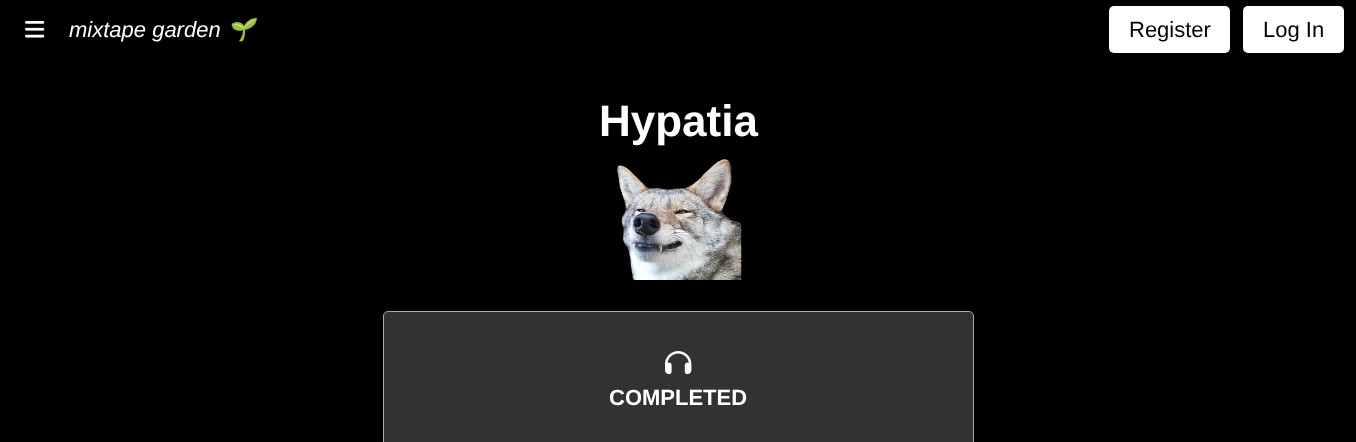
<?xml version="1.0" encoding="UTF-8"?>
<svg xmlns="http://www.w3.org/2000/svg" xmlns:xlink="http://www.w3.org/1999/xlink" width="1356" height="442">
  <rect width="100%" height="100%" fill="#000000" />
  <image x="25" y="21" width="20" height="17" xlink:href="image1.png" />
  <rect x="1109" y="6" width="121" height="47" rx="5" fill="#ffffff" />
  <rect x="1243" y="6" width="101" height="47" rx="5" fill="#ffffff" />
  <image x="617" y="159" width="125" height="121" xlink:href="image2.png" />
  <rect x="383.5" y="311.5" width="590" height="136" rx="4.5" fill="#323232" stroke="#aaaaaa" />
  <image x="665" y="351" width="27" height="24" xlink:href="image3.png" />
  <text x="69" y="37" style="font-family: Liberation Sans; font-size: 22px; font-style: italic; fill: #ffffff">mixtape garden</text>
  <text x="227" y="37" style="font-family: Noto Color Emoji; font-size: 22px; font-style: italic; fill: #ffffff">🌱</text>
  <text x="1129" y="37" style="font-family: Liberation Sans; font-size: 22px; fill: #000000">Register</text>
  <text x="1263" y="37" style="font-family: Liberation Sans; font-size: 22px; fill: #000000">Log In</text>
  <text x="599" y="136" style="font-family: Liberation Sans; font-size: 44px; font-weight: bold; fill: #ffffff">Hypatia</text>
  <text x="609" y="405" style="font-family: Liberation Sans; font-size: 22px; font-weight: bold; fill: #ffffff">COMPLETED</text>
</svg>
